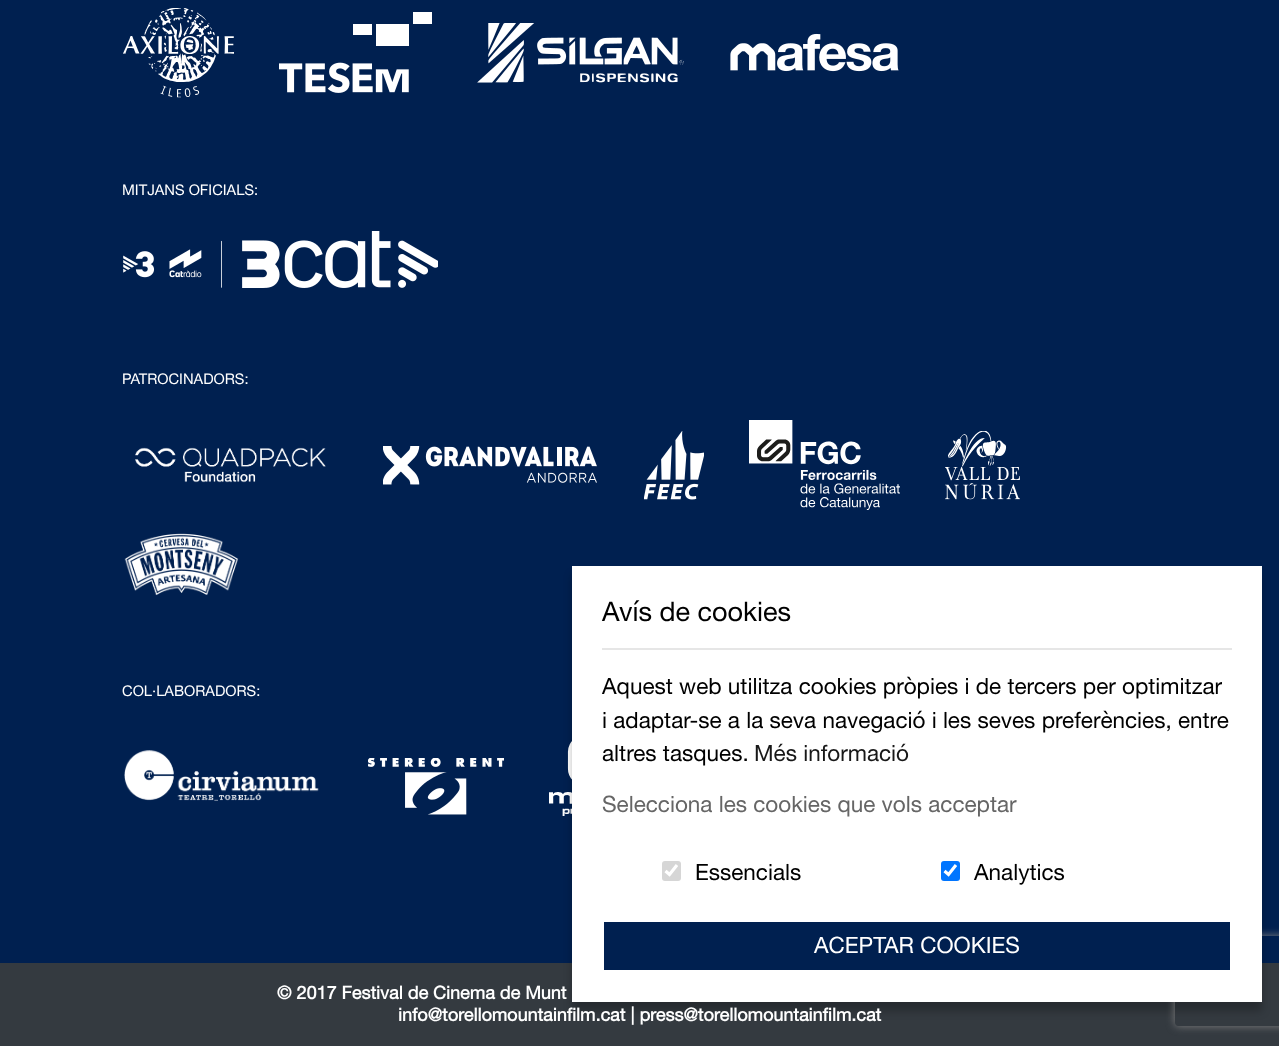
<?xml version="1.0" encoding="UTF-8"?>
<svg xmlns="http://www.w3.org/2000/svg" xmlns:xlink="http://www.w3.org/1999/xlink" width="1279" height="1046">
  <defs>
    <clipPath id="clip1"><path d="M 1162 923 h 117 v 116 h -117 z m 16 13 h 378 c 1.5 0 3 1.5 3 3 v 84 c 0 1.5 -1.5 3 -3 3 h -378 c -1.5 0 -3 -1.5 -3 -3 v -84 c 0 -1.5 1.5 -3 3 -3 z" clip-rule="evenodd" /></clipPath>
  </defs>
  <rect width="100%" height="100%" fill="#002050" />
  <image x="123" y="8" width="111" height="90" xlink:href="image1.png" />
  <image x="279" y="12" width="153" height="81" xlink:href="image2.png" />
  <image x="477" y="23" width="207" height="60" xlink:href="image3.png" />
  <image x="730" y="33" width="169" height="39" xlink:href="image4.png" />
  <image x="123" y="231" width="315" height="57" xlink:href="image5.png" />
  <image x="135" y="447" width="191" height="36" xlink:href="image6.png" />
  <image x="383" y="446" width="214" height="39" xlink:href="image7.png" />
  <image x="644" y="431" width="60" height="69" xlink:href="image8.png" />
  <image x="749" y="420" width="151" height="90" xlink:href="image9.png" />
  <image x="945" y="431" width="75" height="69" xlink:href="image10.png" />
  <image x="124" y="533" width="115" height="63" xlink:href="image11.png" />
  <image x="124" y="750" width="195" height="51" xlink:href="image12.png" />
  <image x="368" y="758" width="136" height="57" xlink:href="image13.png" />
  <image x="549" y="741" width="23" height="75" xlink:href="image14.png" />
  <rect y="963" width="1279" height="83" fill="#343a40" />
  <rect x="572" y="575" width="690" height="436" fill="#000000" fill-opacity="0.25" filter="blur(4.5px)" />
  <g clip-path="url(#clip1)">
    <rect x="1175" y="936" width="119" height="90" rx="3" fill="#808080" filter="blur(4px)" />
  </g>
  <rect x="572" y="566" width="690" height="436" fill="#ffffff" />
  <rect x="602" y="648" width="630" height="2" fill="#e6e6e6" />
  <rect x="662" y="861" width="19" height="20" rx="3" fill="#d6d6d6" />
  <path d="M 665.5 871 l 4 3.5 l 7.5 -9.5" fill="none" stroke="#ffffff" stroke-width="3.1" />
  <rect x="941" y="861" width="19" height="20" rx="3" fill="#0075ff" />
  <path d="M 944.5 871 l 4 3.5 l 7.5 -9.5" fill="none" stroke="#ffffff" stroke-width="3.1" />
  <rect x="604" y="922" width="626" height="48" fill="#002050" />
  <text x="122" y="195" style="font-family: Helvetica Neue; font-size: 14.75px; fill: #ffffff">MITJANS OFICIALS:</text>
  <text x="122" y="384" style="font-family: Helvetica Neue; font-size: 14.75px; fill: #ffffff">PATROCINADORS:</text>
  <text x="122" y="696" style="font-family: Helvetica Neue; font-size: 14.75px; fill: #ffffff">COL·LABORADORS:</text>
  <text x="277" y="999" style="font-family: Helvetica Neue; font-size: 18px; font-weight: bold; fill: #ffffff">© 2017 Festival de Cinema de Munt</text>
  <text x="398" y="1021" style="font-family: Helvetica Neue; font-size: 18px; font-weight: bold; fill: #ffffff">info@torellomountainfilm.cat | press@torellomountainfilm.cat</text>
  <text x="602" y="621" style="font-family: Helvetica Neue; font-size: 27px; fill: #000000">Avís de cookies</text>
  <text x="602" y="694" style="font-family: Helvetica Neue; font-size: 22.5px; fill: #000000">Aquest web utilitza cookies pròpies i de tercers per optimitzar</text>
  <text x="602" y="728" style="font-family: Helvetica Neue; font-size: 22.5px; fill: #000000">i adaptar-se a la seva navegació i les seves preferències, entre</text>
  <text x="602" y="761" style="font-family: Helvetica Neue; font-size: 22.5px; fill: #000000">altres tasques.</text>
  <text x="754" y="761" style="font-family: Helvetica Neue; font-size: 22.5px; fill: #181818">Més informació</text>
  <text x="602" y="812" style="font-family: Helvetica Neue; font-size: 22.5px; fill: #666666">Selecciona les cookies que vols acceptar</text>
  <text x="695" y="880" style="font-family: Helvetica Neue; font-size: 22.5px; fill: #000000">Essencials</text>
  <text x="974" y="880" style="font-family: Helvetica Neue; font-size: 22.5px; fill: #000000">Analytics</text>
  <text x="814" y="953" style="font-family: Helvetica Neue; font-size: 22.5px; fill: #ffffff">ACEPTAR COOKIES</text>
</svg>
